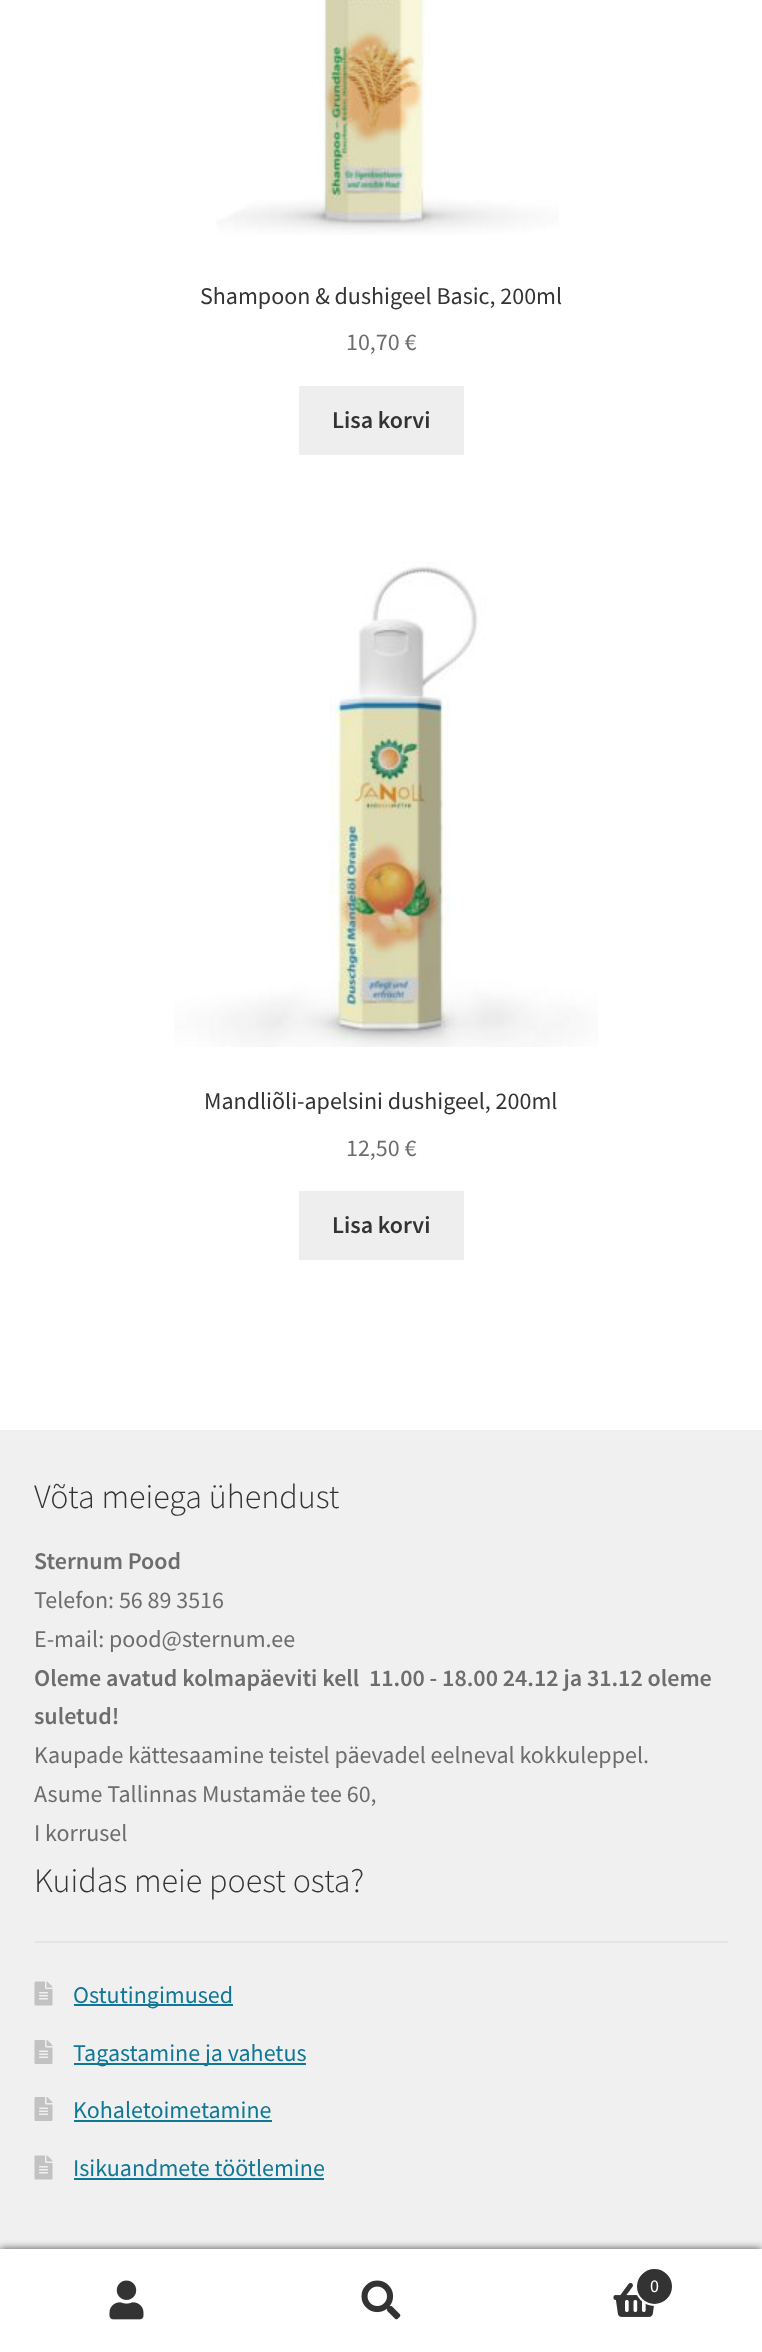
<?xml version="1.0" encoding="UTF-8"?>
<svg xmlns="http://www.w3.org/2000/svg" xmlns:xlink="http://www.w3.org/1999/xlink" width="762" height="2352">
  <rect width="100%" height="100%" fill="#ffffff" />
  <image x="216" y="0" width="343" height="235" xlink:href="image1.png" />
  <rect x="299" y="386" width="165" height="69" fill="#eeeeee" />
  <image x="174" y="561" width="424" height="486" xlink:href="image2.png" />
  <rect x="299" y="1191" width="165" height="69" fill="#eeeeee" />
  <rect y="1430" width="762" height="819" fill="#f0f0f0" />
  <rect x="35" y="1941" width="693" height="2" fill="#e4e4e4" />
  <image x="34" y="1981" width="19" height="25" xlink:href="image3.png" />
  <rect x="74" y="2004" width="159" height="2" fill="#107896" />
  <image x="34" y="2040" width="19" height="24" xlink:href="image4.png" />
  <rect x="74" y="2063" width="232" height="2" fill="#107896" />
  <image x="34" y="2097" width="19" height="24" xlink:href="image4.png" />
  <rect x="74" y="2120" width="198" height="2" fill="#107896" />
  <image x="34" y="2155" width="19" height="25" xlink:href="image3.png" />
  <rect x="74" y="2178" width="250" height="2" fill="#107896" />
  <rect y="2249" width="762" height="103" fill="#000000" fill-opacity="0.7" filter="blur(4.5px)" />
  <rect y="2249" width="762" height="1" fill="#ffffff" />
  <rect y="2250" width="762" height="102" fill="#ffffff" />
  <image x="109" y="2280" width="35" height="40" xlink:href="image5.png" />
  <image x="361" y="2280" width="40" height="40" xlink:href="image6.png" />
  <image x="613" y="2282" width="41" height="35" xlink:href="image7.png" />
  <circle cx="654.5" cy="2286.5" r="18.5" fill="#333333" stroke="#ffffff" stroke-width="2" />
  <text x="200" y="304" style="font-family: Source Sans Pro; font-size: 24px; fill: #333333">Shampoon &amp; dushigeel Basic, 200ml</text>
  <text x="346" y="350" style="font-family: Source Sans Pro; font-size: 24px; fill: #6d6d6d">10,70 €</text>
  <text x="332" y="428" style="font-family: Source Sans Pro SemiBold; font-size: 24px; font-weight: 600; fill: #333333">Lisa korvi</text>
  <text x="204" y="1109" style="font-family: Source Sans Pro; font-size: 24px; fill: #333333">Mandliõli-apelsini dushigeel, 200ml</text>
  <text x="346" y="1156" style="font-family: Source Sans Pro; font-size: 24px; fill: #6d6d6d">12,50 €</text>
  <text x="332" y="1233" style="font-family: Source Sans Pro SemiBold; font-size: 24px; font-weight: 600; fill: #333333">Lisa korvi</text>
  <text x="34" y="1508" style="font-family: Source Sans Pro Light; font-size: 34px; font-weight: 300; fill: #333333">Võta meiega ühendust</text>
  <text x="34" y="1569" style="font-family: Source Sans Pro SemiBold; font-size: 24px; font-weight: 600; fill: #6d6d6d">Sternum Pood</text>
  <text x="34" y="1608" style="font-family: Source Sans Pro; font-size: 24px; fill: #6d6d6d">Telefon: 56 89 3516</text>
  <text x="34" y="1647" style="font-family: Source Sans Pro; font-size: 24px; fill: #6d6d6d">E-mail: pood@sternum.ee</text>
  <text x="34" y="1686" style="font-family: Source Sans Pro SemiBold; font-size: 24px; font-weight: 600; fill: #6d6d6d" xml:space="preserve">Oleme avatud kolmapäeviti kell  11.00 - 18.00 24.12 ja 31.12 oleme</text>
  <text x="34" y="1724" style="font-family: Source Sans Pro SemiBold; font-size: 24px; font-weight: 600; fill: #6d6d6d">suletud!</text>
  <text x="34" y="1763" style="font-family: Source Sans Pro; font-size: 24px; fill: #6d6d6d">Kaupade kättesaamine teistel päevadel eelneval kokkuleppel.</text>
  <text x="34" y="1802" style="font-family: Source Sans Pro; font-size: 24px; fill: #6d6d6d">Asume Tallinnas Mustamäe tee 60,</text>
  <text x="34" y="1841" style="font-family: Source Sans Pro; font-size: 24px; fill: #6d6d6d">I korrusel</text>
  <text x="34" y="1892" style="font-family: Source Sans Pro Light; font-size: 34px; font-weight: 300; fill: #333333">Kuidas meie poest osta?</text>
  <text x="73" y="2003" style="font-family: Source Sans Pro; font-size: 24px; fill: #107896">Ostutingimused</text>
  <text x="73" y="2061" style="font-family: Source Sans Pro; font-size: 24px; fill: #107896">Tagastamine ja vahetus</text>
  <text x="73" y="2118" style="font-family: Source Sans Pro; font-size: 24px; fill: #107896">Kohaletoimetamine</text>
  <text x="73" y="2176" style="font-family: Source Sans Pro; font-size: 24px; fill: #107896">Isikuandmete töötlemine</text>
  <text x="650" y="2292" style="font-family: Source Sans Pro; font-size: 18px; fill: #ffffff">0</text>
</svg>
